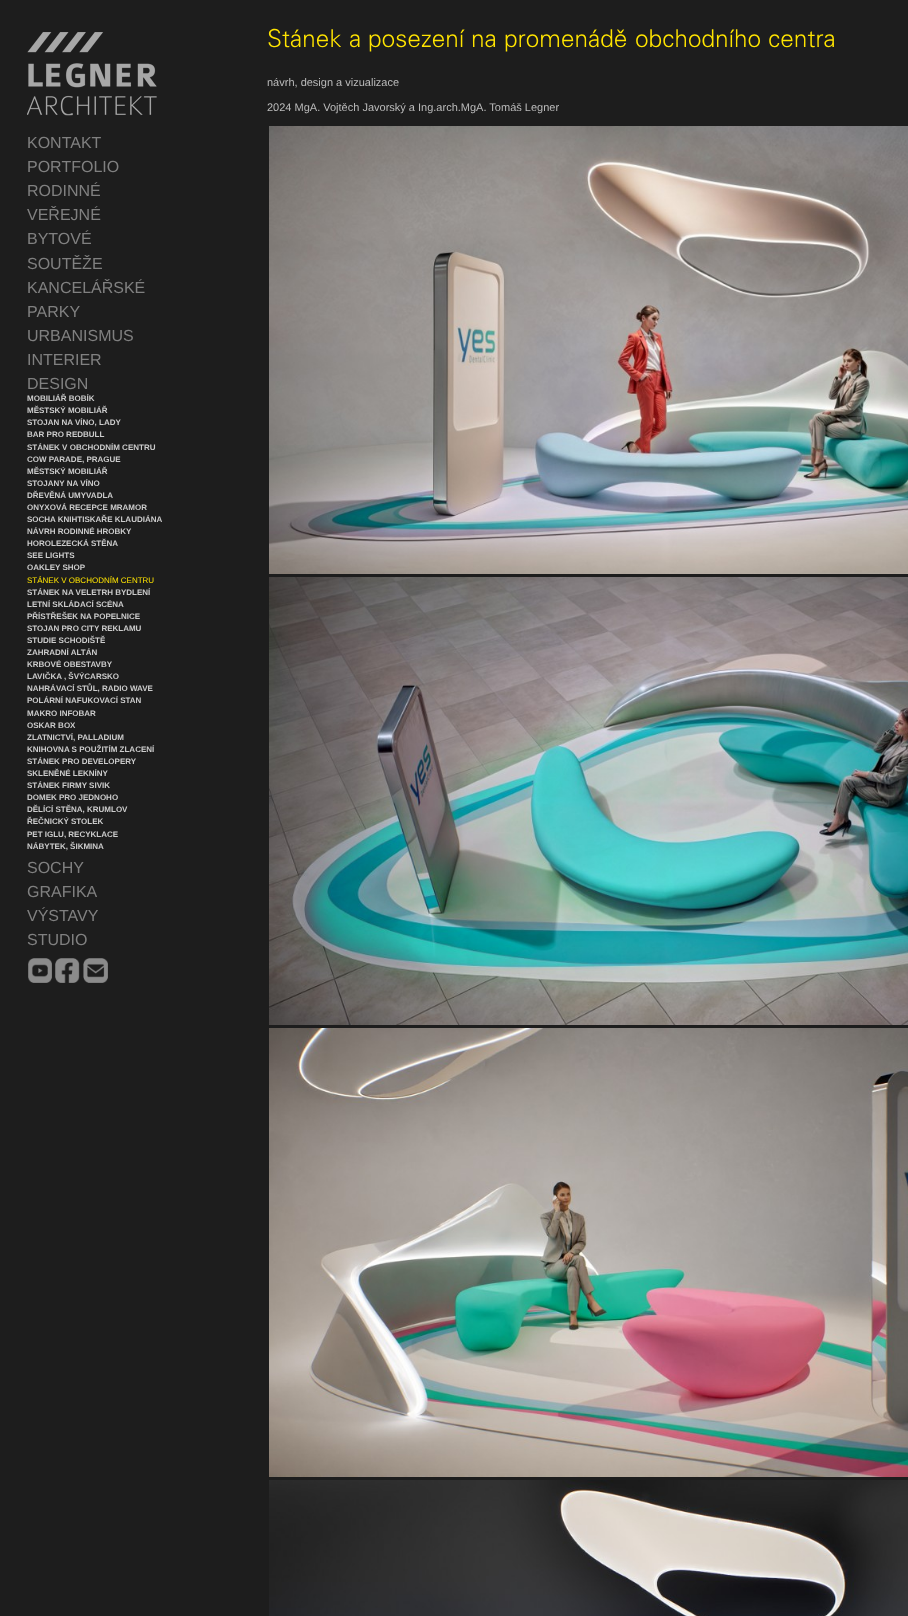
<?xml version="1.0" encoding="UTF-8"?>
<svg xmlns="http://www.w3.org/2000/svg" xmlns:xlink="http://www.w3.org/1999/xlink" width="908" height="1616">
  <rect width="100%" height="100%" fill="#1d1d1d" />
  <image x="268" y="28" width="73" height="20" xlink:href="image1.png" />
  <image x="350" y="34" width="10" height="14" xlink:href="image2.png" />
  <image x="369" y="29" width="96" height="23" xlink:href="image3.png" />
  <image x="472" y="34" width="24" height="14" xlink:href="image4.png" />
  <image x="505" y="29" width="122" height="23" xlink:href="image5.png" />
  <image x="636" y="29" width="124" height="19" xlink:href="image6.png" />
  <image x="769" y="31" width="65" height="17" xlink:href="image7.png" />
  <image x="269" y="126" width="639" height="448" xlink:href="image8.png" />
  <image x="269" y="577" width="639" height="448" xlink:href="image9.png" />
  <image x="269" y="1028" width="639" height="449" xlink:href="image10.png" />
  <image x="269" y="1480" width="639" height="136" xlink:href="image11.png" />
  <image x="27" y="32" width="130" height="84" xlink:href="image12.png" />
  <image x="28" y="958" width="24" height="25" xlink:href="image13.png" />
  <image x="55" y="958" width="25" height="25" xlink:href="image14.png" />
  <image x="83" y="958" width="25" height="25" xlink:href="image15.png" />
  <text x="267" y="86" style="font-family: Liberation Sans; font-size: 11px; fill: #bbbbbb">návrh, design a vizualizace</text>
  <text x="267" y="111" style="font-family: Liberation Sans; font-size: 11px; fill: #bbbbbb">2024 MgA. Vojtěch Javorský a Ing.arch.MgA. Tomáš Legner</text>
  <text x="27" y="148" style="font-family: Liberation Sans; font-size: 16px; fill: #808080">KONTAKT</text>
  <text x="27" y="172" style="font-family: Liberation Sans; font-size: 16px; fill: #808080">PORTFOLIO</text>
  <text x="27" y="196" style="font-family: Liberation Sans; font-size: 16px; fill: #808080">RODINNÉ</text>
  <text x="27" y="220" style="font-family: Liberation Sans; font-size: 16px; fill: #808080">VEŘEJNÉ</text>
  <text x="27" y="244" style="font-family: Liberation Sans; font-size: 16px; fill: #808080">BYTOVÉ</text>
  <text x="27" y="269" style="font-family: Liberation Sans; font-size: 16px; fill: #808080">SOUTĚŽE</text>
  <text x="27" y="293" style="font-family: Liberation Sans; font-size: 16px; fill: #808080">KANCELÁŘSKÉ</text>
  <text x="27" y="317" style="font-family: Liberation Sans; font-size: 16px; fill: #808080">PARKY</text>
  <text x="27" y="341" style="font-family: Liberation Sans; font-size: 16px; fill: #808080">URBANISMUS</text>
  <text x="27" y="365" style="font-family: Liberation Sans; font-size: 16px; fill: #808080">INTERIER</text>
  <text x="27" y="389" style="font-family: Liberation Sans; font-size: 16px; fill: #808080">DESIGN</text>
  <text x="27" y="401" style="font-family: Liberation Sans; font-size: 8px; font-weight: bold; fill: #cccccc">MOBILIÁŘ BOBÍK</text>
  <text x="27" y="413" style="font-family: Liberation Sans; font-size: 8px; font-weight: bold; fill: #cccccc">MĚSTSKÝ MOBILIÁŘ</text>
  <text x="27" y="425" style="font-family: Liberation Sans; font-size: 8px; font-weight: bold; fill: #cccccc">STOJAN NA VÍNO, LADY</text>
  <text x="27" y="437" style="font-family: Liberation Sans; font-size: 8px; font-weight: bold; fill: #cccccc">BAR PRO REDBULL</text>
  <text x="27" y="450" style="font-family: Liberation Sans; font-size: 8px; font-weight: bold; fill: #cccccc">STÁNEK V OBCHODNÍM CENTRU</text>
  <text x="27" y="462" style="font-family: Liberation Sans; font-size: 8px; font-weight: bold; fill: #cccccc">COW PARADE, PRAGUE</text>
  <text x="27" y="474" style="font-family: Liberation Sans; font-size: 8px; font-weight: bold; fill: #cccccc">MĚSTSKÝ MOBILIÁŘ</text>
  <text x="27" y="486" style="font-family: Liberation Sans; font-size: 8px; font-weight: bold; fill: #cccccc">STOJANY NA VÍNO</text>
  <text x="27" y="498" style="font-family: Liberation Sans; font-size: 8px; font-weight: bold; fill: #cccccc">DŘEVĚNÁ UMYVADLA</text>
  <text x="27" y="510" style="font-family: Liberation Sans; font-size: 8px; font-weight: bold; fill: #cccccc">ONYXOVÁ RECEPCE MRAMOR</text>
  <text x="27" y="522" style="font-family: Liberation Sans; font-size: 8px; font-weight: bold; fill: #cccccc">SOCHA KNIHTISKAŘE KLAUDIÁNA</text>
  <text x="27" y="534" style="font-family: Liberation Sans; font-size: 8px; font-weight: bold; fill: #cccccc">NÁVRH RODINNÉ HROBKY</text>
  <text x="27" y="546" style="font-family: Liberation Sans; font-size: 8px; font-weight: bold; fill: #cccccc">HOROLEZECKÁ STĚNA</text>
  <text x="27" y="558" style="font-family: Liberation Sans; font-size: 8px; font-weight: bold; fill: #cccccc">SEE LIGHTS</text>
  <text x="27" y="570" style="font-family: Liberation Sans; font-size: 8px; font-weight: bold; fill: #cccccc">OAKLEY SHOP</text>
  <text x="27" y="583" style="font-family: Liberation Sans; font-size: 8px; fill: #ffe400">STÁNEK V OBCHODNÍM CENTRU</text>
  <text x="27" y="595" style="font-family: Liberation Sans; font-size: 8px; font-weight: bold; fill: #cccccc">STÁNEK NA VELETRH BYDLENÍ</text>
  <text x="27" y="607" style="font-family: Liberation Sans; font-size: 8px; font-weight: bold; fill: #cccccc">LETNÍ SKLÁDACÍ SCÉNA</text>
  <text x="27" y="619" style="font-family: Liberation Sans; font-size: 8px; font-weight: bold; fill: #cccccc">PŘÍSTŘEŠEK NA POPELNICE</text>
  <text x="27" y="631" style="font-family: Liberation Sans; font-size: 8px; font-weight: bold; fill: #cccccc">STOJAN PRO CITY REKLAMU</text>
  <text x="27" y="643" style="font-family: Liberation Sans; font-size: 8px; font-weight: bold; fill: #cccccc">STUDIE SCHODIŠTĚ</text>
  <text x="27" y="655" style="font-family: Liberation Sans; font-size: 8px; font-weight: bold; fill: #cccccc">ZAHRADNÍ ALTÁN</text>
  <text x="27" y="667" style="font-family: Liberation Sans; font-size: 8px; font-weight: bold; fill: #cccccc">KRBOVÉ OBESTAVBY</text>
  <text x="27" y="679" style="font-family: Liberation Sans; font-size: 8px; font-weight: bold; fill: #cccccc">LAVIČKA , ŠVÝCARSKO</text>
  <text x="27" y="691" style="font-family: Liberation Sans; font-size: 8px; font-weight: bold; fill: #cccccc">NAHRÁVACÍ STŮL, RADIO WAVE</text>
  <text x="27" y="703" style="font-family: Liberation Sans; font-size: 8px; font-weight: bold; fill: #cccccc">POLÁRNÍ NAFUKOVACÍ STAN</text>
  <text x="27" y="716" style="font-family: Liberation Sans; font-size: 8px; font-weight: bold; fill: #cccccc">MAKRO INFOBAR</text>
  <text x="27" y="728" style="font-family: Liberation Sans; font-size: 8px; font-weight: bold; fill: #cccccc">OSKAR BOX</text>
  <text x="27" y="740" style="font-family: Liberation Sans; font-size: 8px; font-weight: bold; fill: #cccccc">ZLATNICTVÍ, PALLADIUM</text>
  <text x="27" y="752" style="font-family: Liberation Sans; font-size: 8px; font-weight: bold; fill: #cccccc">KNIHOVNA S POUŽITÍM ZLACENÍ</text>
  <text x="27" y="764" style="font-family: Liberation Sans; font-size: 8px; font-weight: bold; fill: #cccccc">STÁNEK PRO DEVELOPERY</text>
  <text x="27" y="776" style="font-family: Liberation Sans; font-size: 8px; font-weight: bold; fill: #cccccc">SKLENĚNÉ LEKNÍNY</text>
  <text x="27" y="788" style="font-family: Liberation Sans; font-size: 8px; font-weight: bold; fill: #cccccc">STÁNEK FIRMY SIVIK</text>
  <text x="27" y="800" style="font-family: Liberation Sans; font-size: 8px; font-weight: bold; fill: #cccccc">DOMEK PRO JEDNOHO</text>
  <text x="27" y="812" style="font-family: Liberation Sans; font-size: 8px; font-weight: bold; fill: #cccccc">DĚLÍCÍ STĚNA, KRUMLOV</text>
  <text x="27" y="824" style="font-family: Liberation Sans; font-size: 8px; font-weight: bold; fill: #cccccc">ŘEČNICKÝ STOLEK</text>
  <text x="27" y="837" style="font-family: Liberation Sans; font-size: 8px; font-weight: bold; fill: #cccccc">PET IGLU, RECYKLACE</text>
  <text x="27" y="849" style="font-family: Liberation Sans; font-size: 8px; font-weight: bold; fill: #cccccc">NÁBYTEK, ŠIKMINA</text>
  <text x="27" y="873" style="font-family: Liberation Sans; font-size: 16px; fill: #808080">SOCHY</text>
  <text x="27" y="897" style="font-family: Liberation Sans; font-size: 16px; fill: #808080">GRAFIKA</text>
  <text x="27" y="921" style="font-family: Liberation Sans; font-size: 16px; fill: #808080">VÝSTAVY</text>
  <text x="27" y="945" style="font-family: Liberation Sans; font-size: 16px; fill: #808080">STUDIO</text>
</svg>
